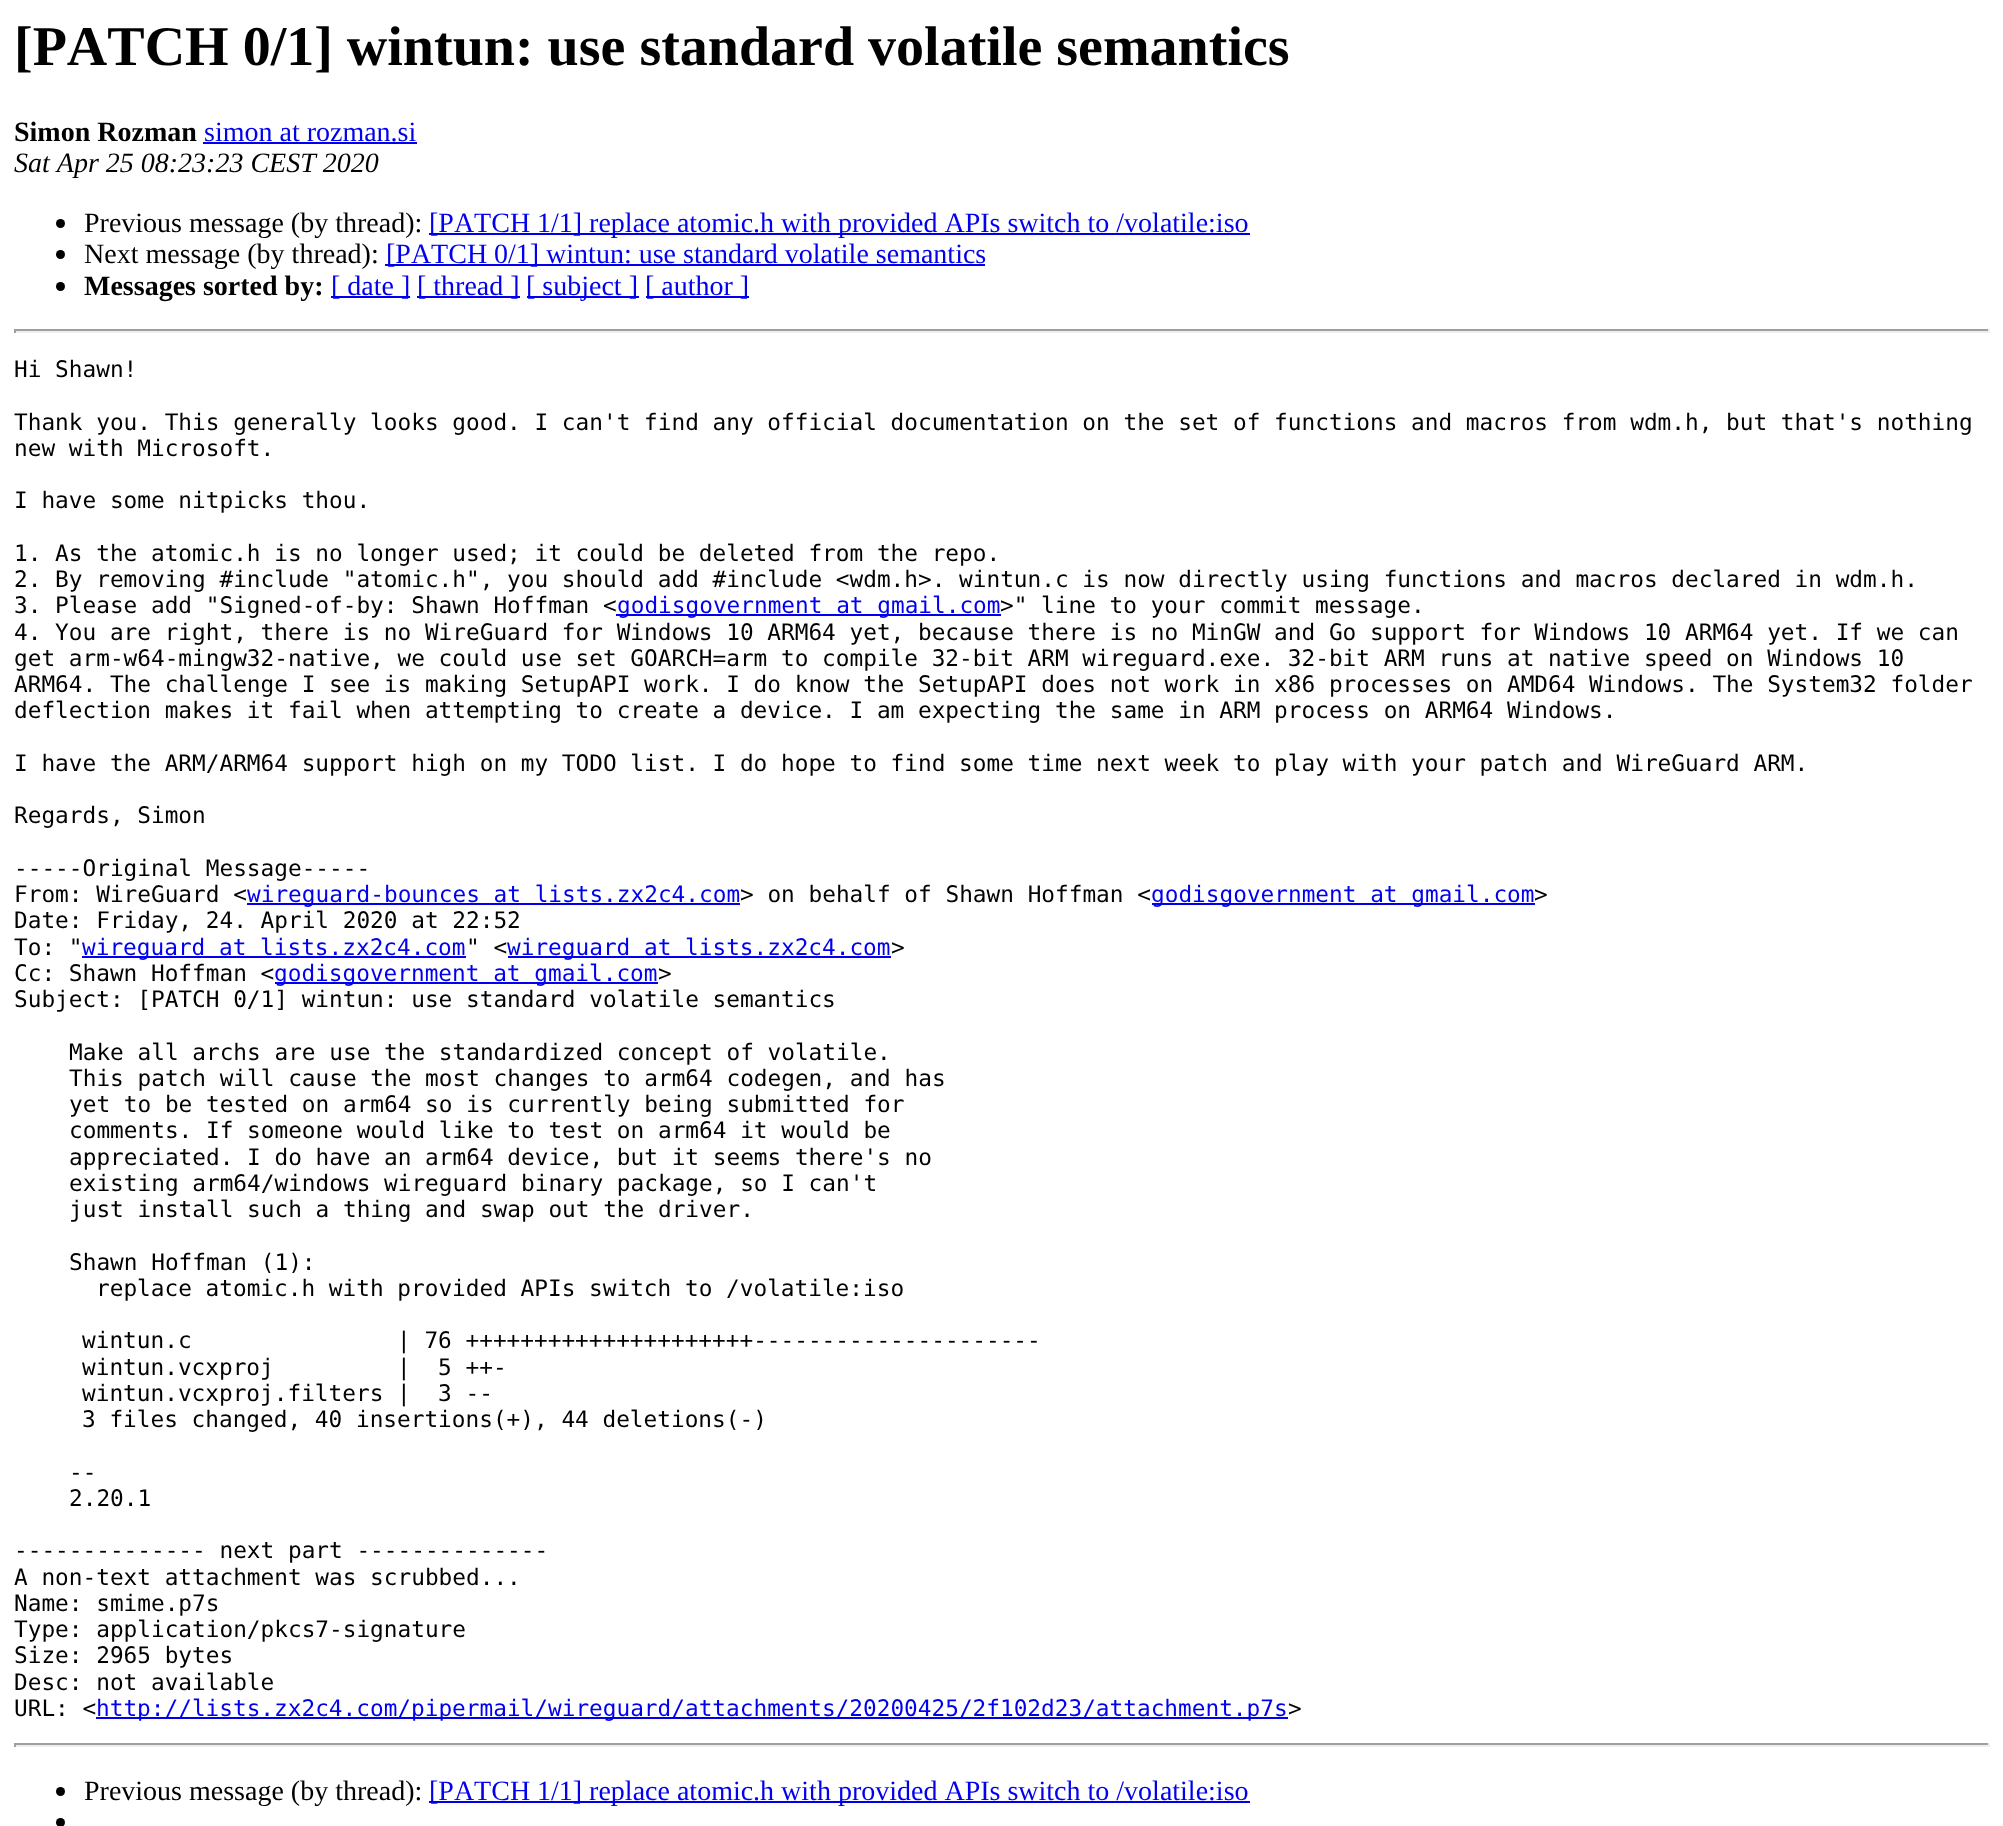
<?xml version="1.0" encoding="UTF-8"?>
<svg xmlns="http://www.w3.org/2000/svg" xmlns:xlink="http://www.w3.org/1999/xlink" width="2003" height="1826">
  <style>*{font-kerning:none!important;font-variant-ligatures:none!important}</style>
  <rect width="100%" height="100%" fill="#ffffff" />
  <rect x="203" y="142" width="214" height="2" fill="#0000ee" />
  <circle cx="60.5" cy="223.5" r="4.5" fill="#000000" />
  <rect x="429" y="233" width="821" height="2" fill="#0000ee" />
  <circle cx="60.5" cy="254.5" r="4.5" fill="#000000" />
  <rect x="385" y="264" width="600" height="2" fill="#0000ee" />
  <circle cx="60.5" cy="286.5" r="4.5" fill="#000000" />
  <rect x="331" y="296" width="79" height="2" fill="#0000ee" />
  <rect x="417" y="296" width="103" height="2" fill="#0000ee" />
  <rect x="527" y="296" width="112" height="2" fill="#0000ee" />
  <rect x="646" y="296" width="103" height="2" fill="#0000ee" />
  <rect x="14" y="329" width="1976" height="2" fill="#9f9f9f" />
  <rect x="1988" y="329" width="2" height="4" fill="#eeeeee" />
  <rect x="14" y="331" width="1976" height="2" fill="#eeeeee" />
  <rect x="14" y="329" width="2" height="4" fill="#9f9f9f" />
  <rect x="616" y="614" width="385" height="2" fill="#0000ee" />
  <rect x="247" y="903" width="493" height="2" fill="#0000ee" />
  <rect x="1152" y="903" width="383" height="2" fill="#0000ee" />
  <rect x="82" y="956" width="384" height="2" fill="#0000ee" />
  <rect x="508" y="956" width="383" height="2" fill="#0000ee" />
  <rect x="275" y="982" width="383" height="2" fill="#0000ee" />
  <rect x="96" y="1717" width="1192" height="2" fill="#0000ee" />
  <rect x="14" y="1743" width="1976" height="2" fill="#9f9f9f" />
  <rect x="1988" y="1743" width="2" height="4" fill="#eeeeee" />
  <rect x="14" y="1745" width="1976" height="2" fill="#eeeeee" />
  <rect x="14" y="1743" width="2" height="4" fill="#9f9f9f" />
  <circle cx="60.5" cy="1791.5" r="4.5" fill="#000000" />
  <rect x="429" y="1801" width="821" height="2" fill="#0000ee" />
  <circle cx="60.5" cy="1822.5" r="4.5" fill="#000000" />
  <text x="14" y="65" style="font-family: Liberation Serif; font-size: 56px; font-weight: bold; fill: #000000">[PATCH 0/1] wintun: use standard volatile semantics</text>
  <text x="14" y="141" style="font-family: Liberation Serif; font-size: 28px; font-weight: bold; fill: #000000">Simon Rozman</text>
  <text x="204" y="141" style="font-family: Liberation Serif; font-size: 28px; fill: #0000ee">simon at rozman.si</text>
  <text x="14" y="172" style="font-family: Liberation Serif; font-size: 28px; font-style: italic; fill: #000000">Sat Apr 25 08:23:23 CEST 2020</text>
  <text x="84" y="232" style="font-family: Liberation Serif; font-size: 28px; fill: #000000">Previous message (by thread):</text>
  <text x="429" y="232" style="font-family: Liberation Serif; font-size: 28px; fill: #0000ee">[PATCH</text>
  <text x="537" y="232" style="font-family: Liberation Serif; font-size: 28px; fill: #0000ee">1/1] replace atomic.h with provided APIs switch to /volatile:iso</text>
  <text x="84" y="263" style="font-family: Liberation Serif; font-size: 28px; fill: #000000">Next message (by thread):</text>
  <text x="386" y="263" style="font-family: Liberation Serif; font-size: 28px; fill: #0000ee">[PATCH</text>
  <text x="494" y="263" style="font-family: Liberation Serif; font-size: 28px; fill: #0000ee">0/1] wintun: use standard volatile semantics</text>
  <text x="84" y="295" style="font-family: Liberation Serif; font-size: 28px; font-weight: bold; fill: #000000">Messages sorted by:</text>
  <text x="331" y="295" style="font-family: Liberation Serif; font-size: 28px; fill: #0000ee">[ date ]</text>
  <text x="417" y="295" style="font-family: Liberation Serif; font-size: 28px; fill: #0000ee">[ thread ]</text>
  <text x="526" y="295" style="font-family: Liberation Serif; font-size: 28px; fill: #0000ee">[ subject ]</text>
  <text x="645" y="295" style="font-family: Liberation Serif; font-size: 28px; fill: #0000ee">[ author ]</text>
  <text x="14" y="377" style="font-family: DejaVu Sans Mono; font-size: 22.75px; fill: #000000">Hi Shawn!</text>
  <text x="14" y="430" style="font-family: DejaVu Sans Mono; font-size: 22.75px; fill: #000000">Thank you. This generally looks good. I can't find any official documentation on the set of functions and macros from wdm.h, but that's nothing</text>
  <text x="14" y="456" style="font-family: DejaVu Sans Mono; font-size: 22.75px; fill: #000000">new with Microsoft.</text>
  <text x="14" y="508" style="font-family: DejaVu Sans Mono; font-size: 22.75px; fill: #000000">I have some nitpicks thou.</text>
  <text x="14" y="561" style="font-family: DejaVu Sans Mono; font-size: 22.75px; fill: #000000">1. As the atomic.h is no longer used; it could be deleted from the repo.</text>
  <text x="14" y="587" style="font-family: DejaVu Sans Mono; font-size: 22.75px; fill: #000000">2. By removing #include "atomic.h", you should add #include &lt;wdm.h&gt;. wintun.c is now directly using functions and macros declared in wdm.h.</text>
  <text x="14" y="613" style="font-family: DejaVu Sans Mono; font-size: 22.75px; fill: #000000">3. Please add "Signed-of-by: Shawn Hoffman &lt;</text>
  <text x="617" y="613" style="font-family: DejaVu Sans Mono; font-size: 22.75px; fill: #0000ee">godisgovernment at gmail.com</text>
  <text x="1000" y="613" style="font-family: DejaVu Sans Mono; font-size: 22.75px; fill: #000000">&gt;" line to your commit message.</text>
  <text x="14" y="640" style="font-family: DejaVu Sans Mono; font-size: 22.75px; fill: #000000">4. You are right, there is no WireGuard for Windows 10 ARM64 yet, because there is no MinGW and Go support for Windows 10 ARM64 yet. If we can</text>
  <text x="14" y="666" style="font-family: DejaVu Sans Mono; font-size: 22.75px; fill: #000000">get arm-w64-mingw32-native, we could use set GOARCH=arm to compile 32-bit ARM wireguard.exe. 32-bit ARM runs at native speed on Windows 10</text>
  <text x="14" y="692" style="font-family: DejaVu Sans Mono; font-size: 22.75px; fill: #000000">ARM64. The challenge I see is making SetupAPI work. I do know the SetupAPI does not work in x86 processes on AMD64 Windows. The System32 folder</text>
  <text x="14" y="718" style="font-family: DejaVu Sans Mono; font-size: 22.75px; fill: #000000">deflection makes it fail when attempting to create a device. I am expecting the same in ARM process on ARM64 Windows.</text>
  <text x="14" y="771" style="font-family: DejaVu Sans Mono; font-size: 22.75px; fill: #000000">I have the ARM/ARM64 support high on my TODO list. I do hope to find some time next week to play with your patch and WireGuard ARM.</text>
  <text x="14" y="823" style="font-family: DejaVu Sans Mono; font-size: 22.75px; fill: #000000">Regards, Simon</text>
  <text x="14" y="876" style="font-family: DejaVu Sans Mono; font-size: 22.75px; fill: #000000">-----Original Message-----</text>
  <text x="14" y="902" style="font-family: DejaVu Sans Mono; font-size: 22.75px; fill: #000000">From: WireGuard &lt;</text>
  <text x="247" y="902" style="font-family: DejaVu Sans Mono; font-size: 22.75px; fill: #0000ee">wireguard-bounces at lists.zx2c4.com</text>
  <text x="740" y="902" style="font-family: DejaVu Sans Mono; font-size: 22.75px; fill: #000000">&gt; on behalf of Shawn Hoffman &lt;</text>
  <text x="1151" y="902" style="font-family: DejaVu Sans Mono; font-size: 22.75px; fill: #0000ee">godisgovernment at gmail.com</text>
  <text x="1534" y="902" style="font-family: DejaVu Sans Mono; font-size: 22.75px; fill: #000000">&gt;</text>
  <text x="14" y="928" style="font-family: DejaVu Sans Mono; font-size: 22.75px; fill: #000000">Date: Friday, 24. April 2020 at 22:52</text>
  <text x="14" y="955" style="font-family: DejaVu Sans Mono; font-size: 22.75px; fill: #000000">To: "</text>
  <text x="82" y="955" style="font-family: DejaVu Sans Mono; font-size: 22.75px; fill: #0000ee">wireguard at lists.zx2c4.com</text>
  <text x="466" y="955" style="font-family: DejaVu Sans Mono; font-size: 22.75px; fill: #000000">" &lt;</text>
  <text x="507" y="955" style="font-family: DejaVu Sans Mono; font-size: 22.75px; fill: #0000ee">wireguard at lists.zx2c4.com</text>
  <text x="891" y="955" style="font-family: DejaVu Sans Mono; font-size: 22.75px; fill: #000000">&gt;</text>
  <text x="14" y="981" style="font-family: DejaVu Sans Mono; font-size: 22.75px; fill: #000000">Cc: Shawn Hoffman &lt;</text>
  <text x="274" y="981" style="font-family: DejaVu Sans Mono; font-size: 22.75px; fill: #0000ee">godisgovernment at gmail.com</text>
  <text x="658" y="981" style="font-family: DejaVu Sans Mono; font-size: 22.75px; fill: #000000">&gt;</text>
  <text x="14" y="1007" style="font-family: DejaVu Sans Mono; font-size: 22.75px; fill: #000000">Subject: [PATCH 0/1] wintun: use standard volatile semantics</text>
  <text x="69" y="1060" style="font-family: DejaVu Sans Mono; font-size: 22.75px; fill: #000000">Make all archs are use the standardized concept of volatile.</text>
  <text x="69" y="1086" style="font-family: DejaVu Sans Mono; font-size: 22.75px; fill: #000000">This patch will cause the most changes to arm64 codegen, and has</text>
  <text x="69" y="1112" style="font-family: DejaVu Sans Mono; font-size: 22.75px; fill: #000000">yet to be tested on arm64 so is currently being submitted for</text>
  <text x="69" y="1138" style="font-family: DejaVu Sans Mono; font-size: 22.75px; fill: #000000">comments. If someone would like to test on arm64 it would be</text>
  <text x="69" y="1165" style="font-family: DejaVu Sans Mono; font-size: 22.75px; fill: #000000">appreciated. I do have an arm64 device, but it seems there's no</text>
  <text x="69" y="1191" style="font-family: DejaVu Sans Mono; font-size: 22.75px; fill: #000000">existing arm64/windows wireguard binary package, so I can't</text>
  <text x="69" y="1217" style="font-family: DejaVu Sans Mono; font-size: 22.75px; fill: #000000">just install such a thing and swap out the driver.</text>
  <text x="69" y="1270" style="font-family: DejaVu Sans Mono; font-size: 22.75px; fill: #000000">Shawn Hoffman (1):</text>
  <text x="96" y="1296" style="font-family: DejaVu Sans Mono; font-size: 22.75px; fill: #000000">replace atomic.h with provided APIs switch to /volatile:iso</text>
  <text x="82" y="1348" style="font-family: DejaVu Sans Mono; font-size: 22.75px; fill: #000000" xml:space="preserve">wintun.c               | 76 +++++++++++++++++++++---------------------</text>
  <text x="82" y="1375" style="font-family: DejaVu Sans Mono; font-size: 22.75px; fill: #000000" xml:space="preserve">wintun.vcxproj         |  5 ++-</text>
  <text x="82" y="1401" style="font-family: DejaVu Sans Mono; font-size: 22.75px; fill: #000000" xml:space="preserve">wintun.vcxproj.filters |  3 --</text>
  <text x="82" y="1427" style="font-family: DejaVu Sans Mono; font-size: 22.75px; fill: #000000">3 files changed, 40 insertions(+), 44 deletions(-)</text>
  <text x="69" y="1480" style="font-family: DejaVu Sans Mono; font-size: 22.75px; fill: #000000">--</text>
  <text x="69" y="1506" style="font-family: DejaVu Sans Mono; font-size: 22.75px; fill: #000000">2.20.1</text>
  <text x="14" y="1558" style="font-family: DejaVu Sans Mono; font-size: 22.75px; fill: #000000">-------------- next part --------------</text>
  <text x="14" y="1585" style="font-family: DejaVu Sans Mono; font-size: 22.75px; fill: #000000">A non-text attachment was scrubbed...</text>
  <text x="14" y="1611" style="font-family: DejaVu Sans Mono; font-size: 22.75px; fill: #000000">Name: smime.p7s</text>
  <text x="14" y="1637" style="font-family: DejaVu Sans Mono; font-size: 22.75px; fill: #000000">Type: application/pkcs7-signature</text>
  <text x="14" y="1663" style="font-family: DejaVu Sans Mono; font-size: 22.75px; fill: #000000">Size: 2965 bytes</text>
  <text x="14" y="1690" style="font-family: DejaVu Sans Mono; font-size: 22.75px; fill: #000000">Desc: not available</text>
  <text x="14" y="1716" style="font-family: DejaVu Sans Mono; font-size: 22.75px; fill: #000000">URL: &lt;</text>
  <text x="96" y="1716" style="font-family: DejaVu Sans Mono; font-size: 22.75px; fill: #0000ee">http://lists.zx2c4.com/pipermail/wireguard/attachments/20200425/2f102d23/attachment.p7s</text>
  <text x="1288" y="1716" style="font-family: DejaVu Sans Mono; font-size: 22.75px; fill: #000000">&gt;</text>
  <text x="84" y="1800" style="font-family: Liberation Serif; font-size: 28px; fill: #000000">Previous message (by thread):</text>
  <text x="429" y="1800" style="font-family: Liberation Serif; font-size: 28px; fill: #0000ee">[PATCH</text>
  <text x="537" y="1800" style="font-family: Liberation Serif; font-size: 28px; fill: #0000ee">1/1] replace atomic.h with provided APIs switch to /volatile:iso</text>
</svg>
